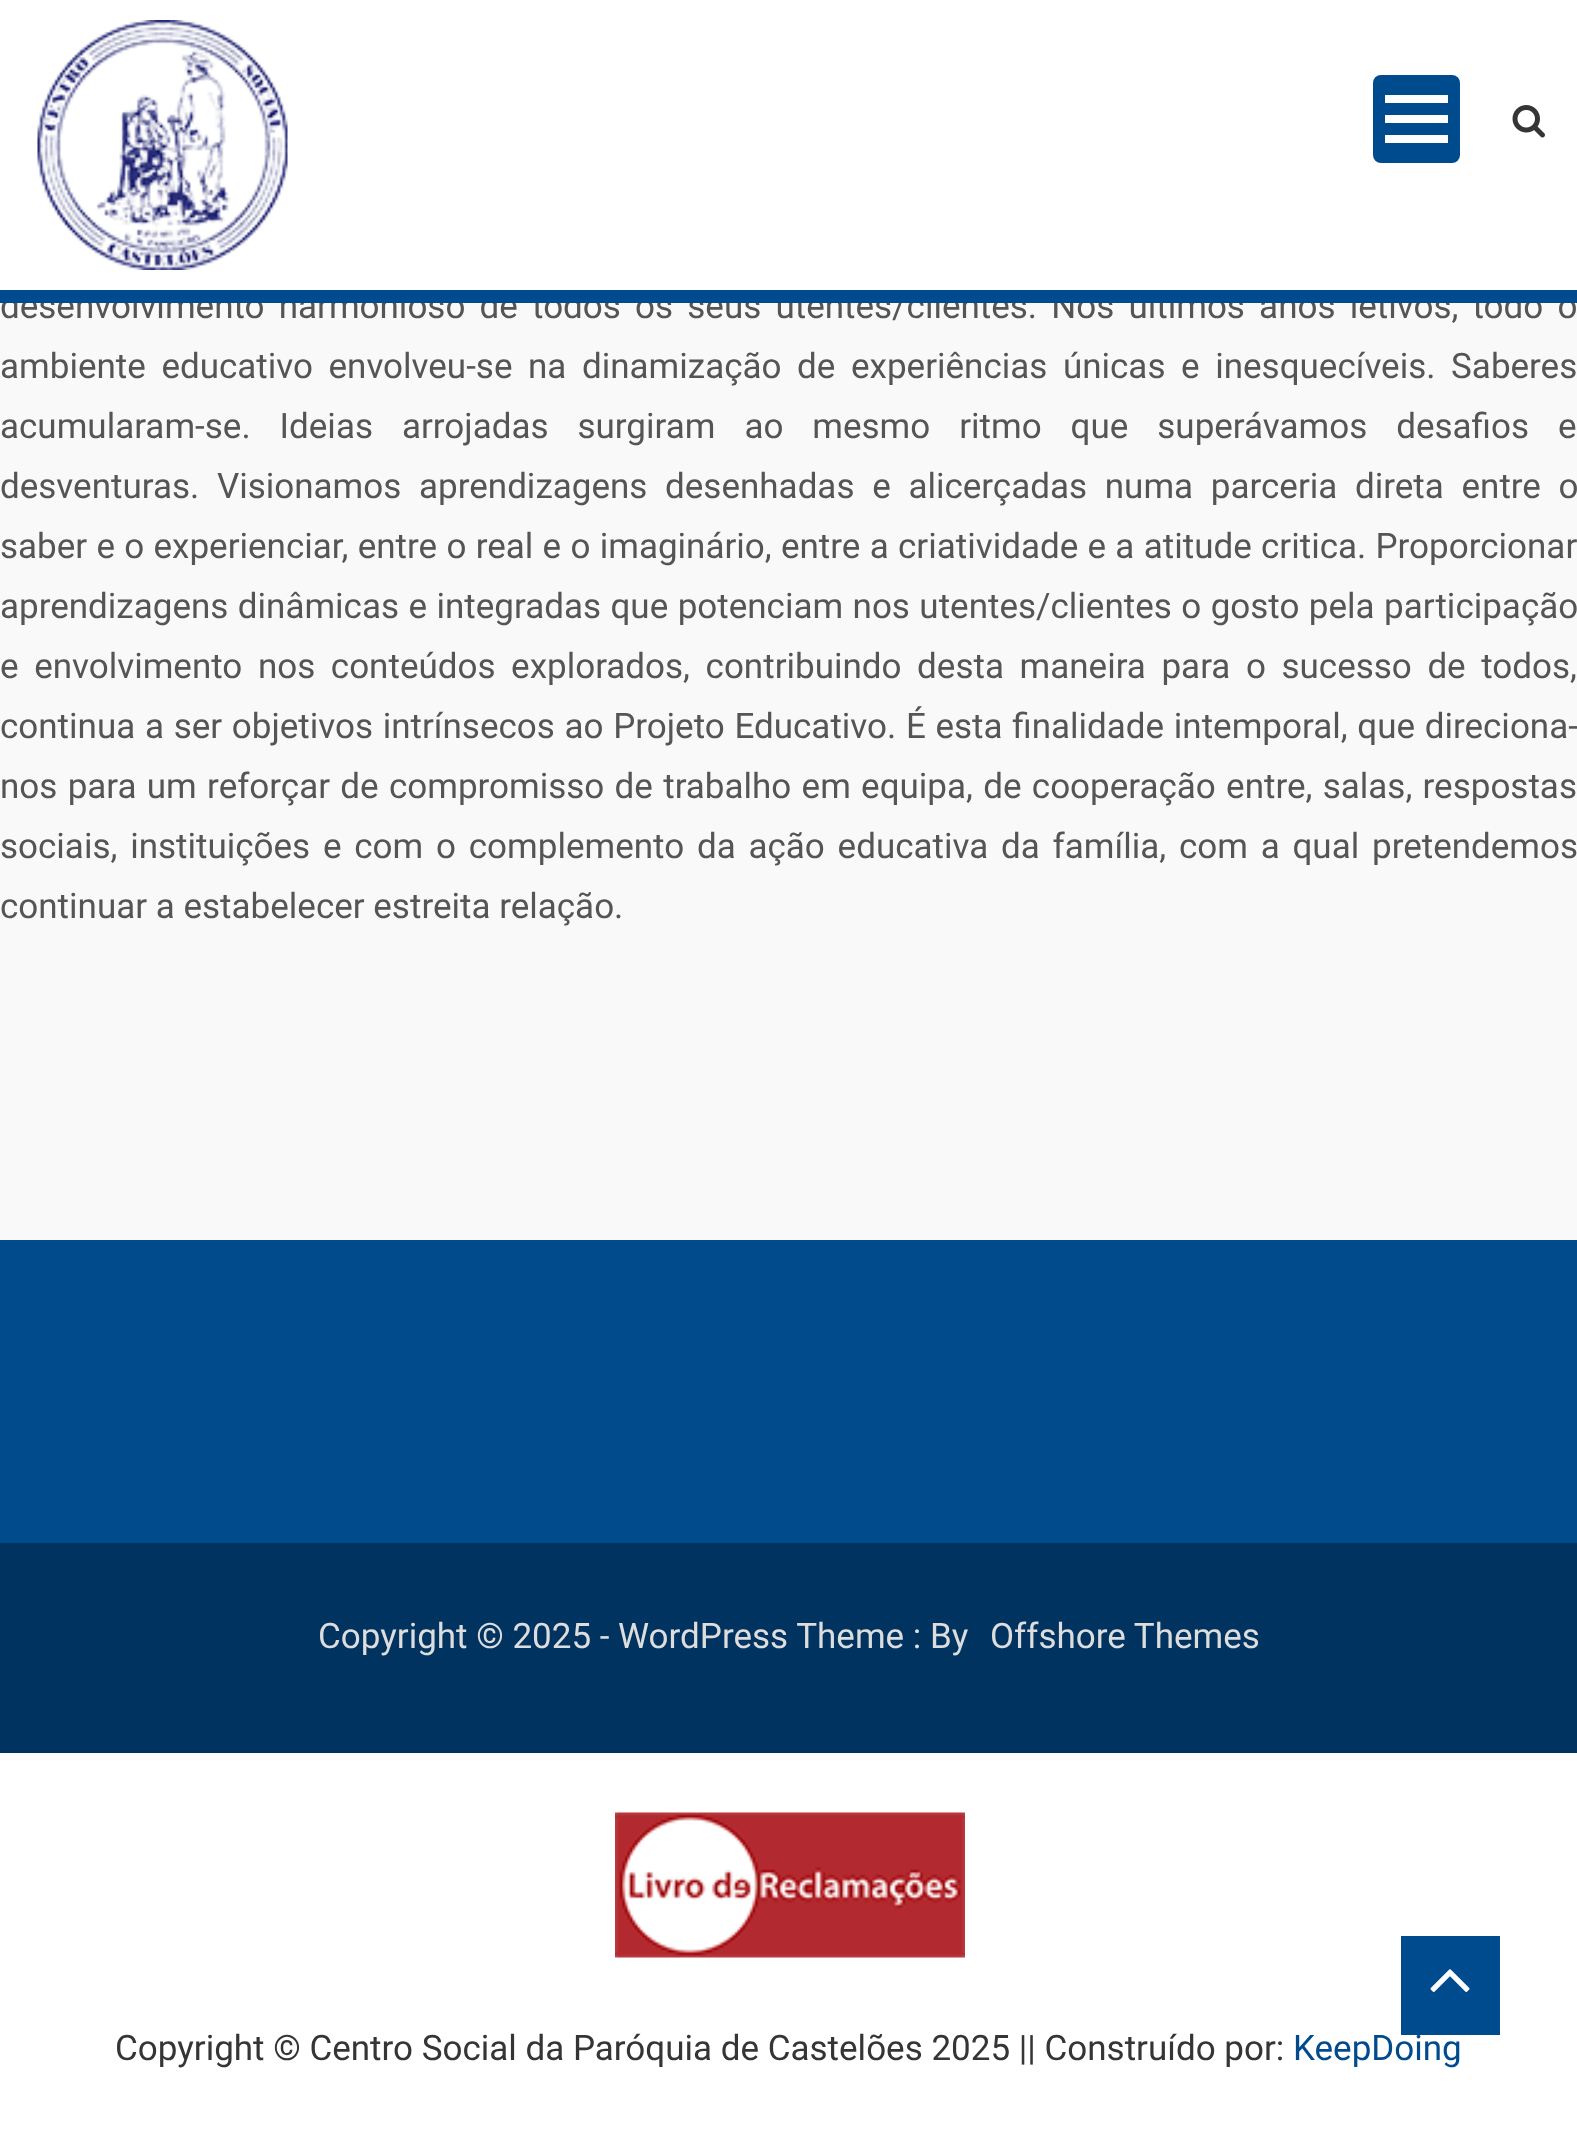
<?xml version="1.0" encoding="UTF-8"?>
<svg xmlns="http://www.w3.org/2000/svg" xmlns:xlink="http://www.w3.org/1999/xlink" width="1577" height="2137">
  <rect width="100%" height="100%" fill="#ffffff" />
  <image x="37" y="20" width="251" height="250" xlink:href="image1.png" />
  <rect x="1373" y="75" width="87" height="88" rx="8" fill="#004b8e" />
  <rect x="1385" y="95" width="63" height="8" fill="#ffffff" />
  <rect x="1385" y="115" width="63" height="8" fill="#ffffff" />
  <rect x="1385" y="135" width="63" height="8" fill="#ffffff" />
  <image x="1512" y="105" width="33" height="33" xlink:href="image2.png" />
  <rect y="303" width="1577" height="937" fill="#f9f9f9" />
  <rect y="1240" width="1577" height="303" fill="#014b8d" />
  <rect y="1543" width="1577" height="210" fill="#00335f" />
  <rect x="1399.5" y="1934.5" width="102" height="102" fill="#004b8e" stroke="#ffffff" stroke-width="3" />
  <image x="1430" y="1969" width="40" height="23" xlink:href="image3.png" />
  <image x="615" y="1812" width="350" height="146" xlink:href="image4.png" />
  <text x="0" y="318" word-spacing="5.5" style="font-family: Roboto; font-size: 35px; fill: #555555">desenvolvimento harmonioso de todos os seus utentes/clientes. Nos últimos anos letivos, todo o</text>
  <rect y="290" width="1577" height="13" fill="#004b8e" />
  <text x="0" y="378" word-spacing="6.9" style="font-family: Roboto; font-size: 35px; fill: #555555">ambiente educativo envolveu-se na dinamização de experiências únicas e inesquecíveis. Saberes</text>
  <text x="0" y="438" word-spacing="20.25" style="font-family: Roboto; font-size: 35px; fill: #555555">acumularam-se. Ideias arrojadas surgiram ao mesmo ritmo que superávamos desafios e</text>
  <text x="0" y="498" word-spacing="9" style="font-family: Roboto; font-size: 35px; fill: #555555">desventuras. Visionamos aprendizagens desenhadas e alicerçadas numa parceria direta entre o</text>
  <text x="0" y="558" word-spacing="0.6" style="font-family: Roboto; font-size: 35px; fill: #555555">saber e o experienciar, entre o real e o imaginário, entre a criatividade e a atitude critica. Proporcionar</text>
  <text x="0" y="618" word-spacing="0.75" style="font-family: Roboto; font-size: 35px; fill: #555555">aprendizagens dinâmicas e integradas que potenciam nos utentes/clientes o gosto pela participação</text>
  <text x="0" y="678" word-spacing="6.9" style="font-family: Roboto; font-size: 35px; fill: #555555">e envolvimento nos conteúdos explorados, contribuindo desta maneira para o sucesso de todos,</text>
  <text x="0" y="738" word-spacing="1" style="font-family: Roboto; font-size: 35px; fill: #555555">continua a ser objetivos intrínsecos ao Projeto Educativo. É esta finalidade intemporal, que direciona-</text>
  <text x="0" y="798" word-spacing="1.6" style="font-family: Roboto; font-size: 35px; fill: #555555">nos para um reforçar de compromisso de trabalho em equipa, de cooperação entre, salas, respostas</text>
  <text x="0" y="858" word-spacing="4.1" style="font-family: Roboto; font-size: 35px; fill: #555555">sociais, instituições e com o complemento da ação educativa da família, com a qual pretendemos</text>
  <text x="0" y="918" style="font-family: Roboto; font-size: 35px; fill: #555555">continuar a estabelecer estreita relação.</text>
  <text x="318" y="1648" style="font-family: Roboto; font-size: 35px; fill: #dddddd">Copyright © 2025 - WordPress Theme : By</text>
  <text x="990" y="1648" style="font-family: Roboto; font-size: 35px; fill: #dddddd">Offshore Themes</text>
  <text x="115" y="2060" style="font-family: Roboto; font-size: 35px; fill: #353535">Copyright © Centro Social da Paróquia de Castelões 2025 || Construído por:</text>
  <text x="1293" y="2060" style="font-family: Roboto; font-size: 35px; fill: #004b8e">KeepDoing</text>
</svg>
